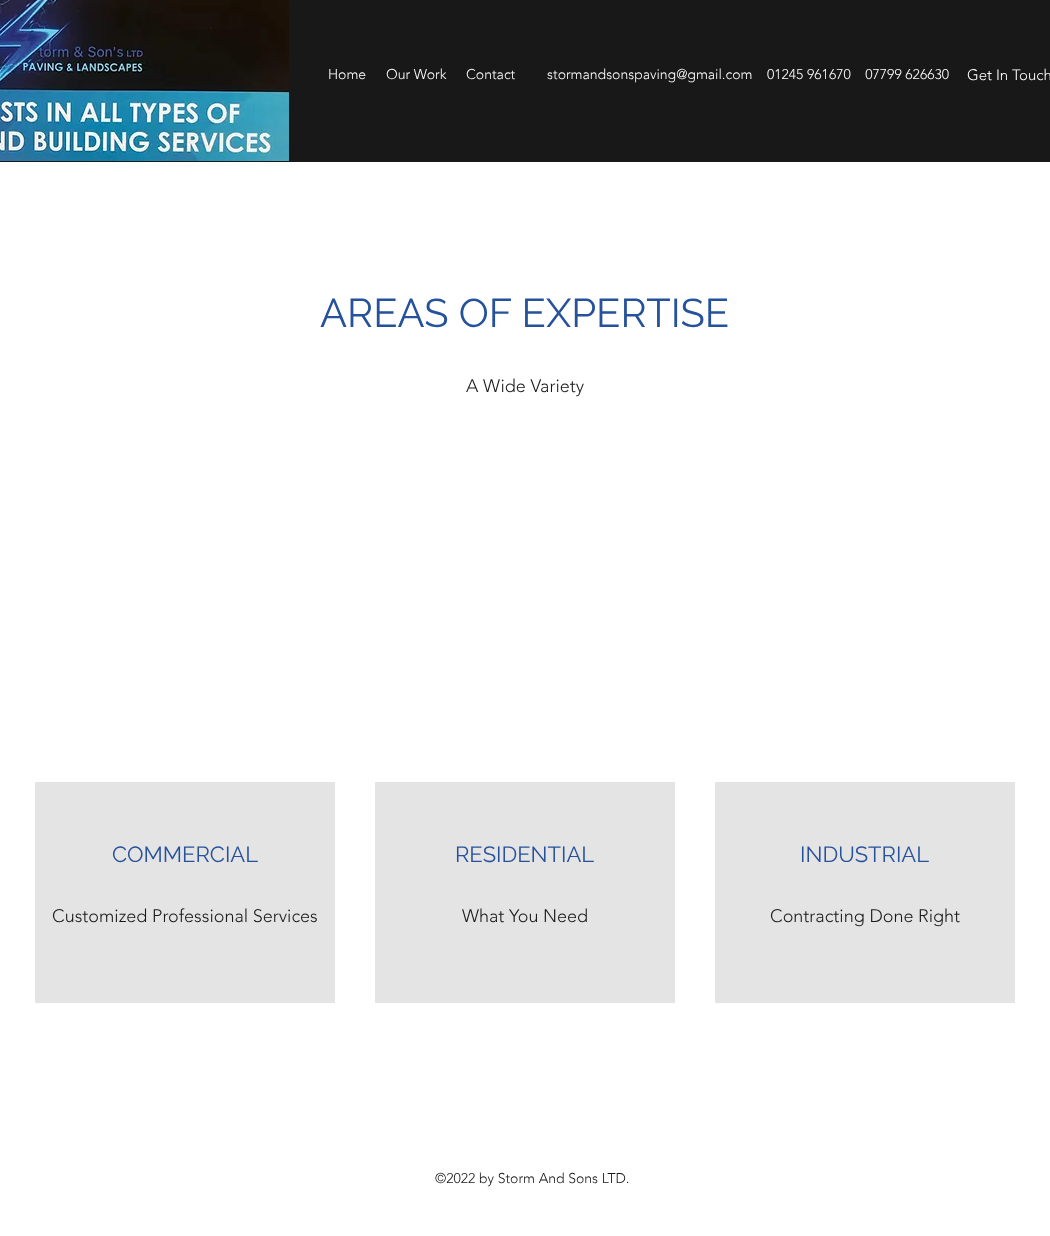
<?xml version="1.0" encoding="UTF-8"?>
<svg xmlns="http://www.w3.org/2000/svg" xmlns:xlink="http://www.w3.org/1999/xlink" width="1050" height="1236">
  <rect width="100%" height="100%" fill="#ffffff" />
  <rect width="1050" height="162" fill="#181818" />
  <image x="0" y="0" width="289" height="161" xlink:href="image1.png" />
  <rect x="35" y="782" width="300" height="221" fill="#e4e4e4" />
  <rect x="375" y="782" width="300" height="221" fill="#e4e4e4" />
  <rect x="715" y="782" width="300" height="221" fill="#e4e4e4" />
  <text x="328" y="79" style="font-family: 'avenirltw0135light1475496'; font-size: 14px; font-weight: 300; fill: #ffffff">Home</text>
  <text x="386" y="79" style="font-family: 'avenirltw0135light1475496'; font-size: 14px; font-weight: 300; fill: #ffffff">Our Work</text>
  <text x="466" y="79" style="font-family: 'avenirltw0135light1475496'; font-size: 14px; font-weight: 300; fill: #ffffff">Contact</text>
  <text x="547" y="79" style="font-family: 'avenirltw0135light1475496'; font-size: 14px; font-weight: 300; fill: #ffffff">stormandsonspaving@gmail.com</text>
  <text x="767" y="79" style="font-family: 'avenirltw0135light1475496'; font-size: 14px; font-weight: 300; fill: #ffffff" xml:space="preserve">01245 961670    07799 626630</text>
  <text x="967" y="80" style="font-family: 'avenirltw0135light1475496'; font-size: 15px; font-weight: 300; fill: #ffffff">Get In Touch</text>
  <text x="320" y="327" style="font-family: Raleway; font-size: 40px; fill: #26529c">AREAS OF EXPERTISE</text>
  <text x="466" y="392" style="font-family: 'avenirltw0135light1475496'; font-size: 18px; font-weight: 300; fill: #181818">A Wide Variety</text>
  <text x="112" y="862" style="font-family: Raleway; font-size: 22px; fill: #26529c">COMMERCIAL</text>
  <text x="52" y="922" style="font-family: 'avenirltw0135light1475496'; font-size: 18px; font-weight: 300; fill: #181818">Customized Professional Services</text>
  <text x="455" y="862" style="font-family: Raleway; font-size: 22px; fill: #26529c">RESIDENTIAL</text>
  <text x="462" y="922" style="font-family: 'avenirltw0135light1475496'; font-size: 18px; font-weight: 300; fill: #181818">What You Need</text>
  <text x="800" y="862" style="font-family: Raleway; font-size: 22px; fill: #26529c">INDUSTRIAL</text>
  <text x="770" y="922" style="font-family: 'avenirltw0135light1475496'; font-size: 18px; font-weight: 300; fill: #181818">Contracting Done Right</text>
  <text x="435" y="1183" style="font-family: 'avenirltw0135light1475496'; font-size: 14px; font-weight: 300; fill: #181818">©2022 by Storm And Sons LTD.</text>
</svg>
